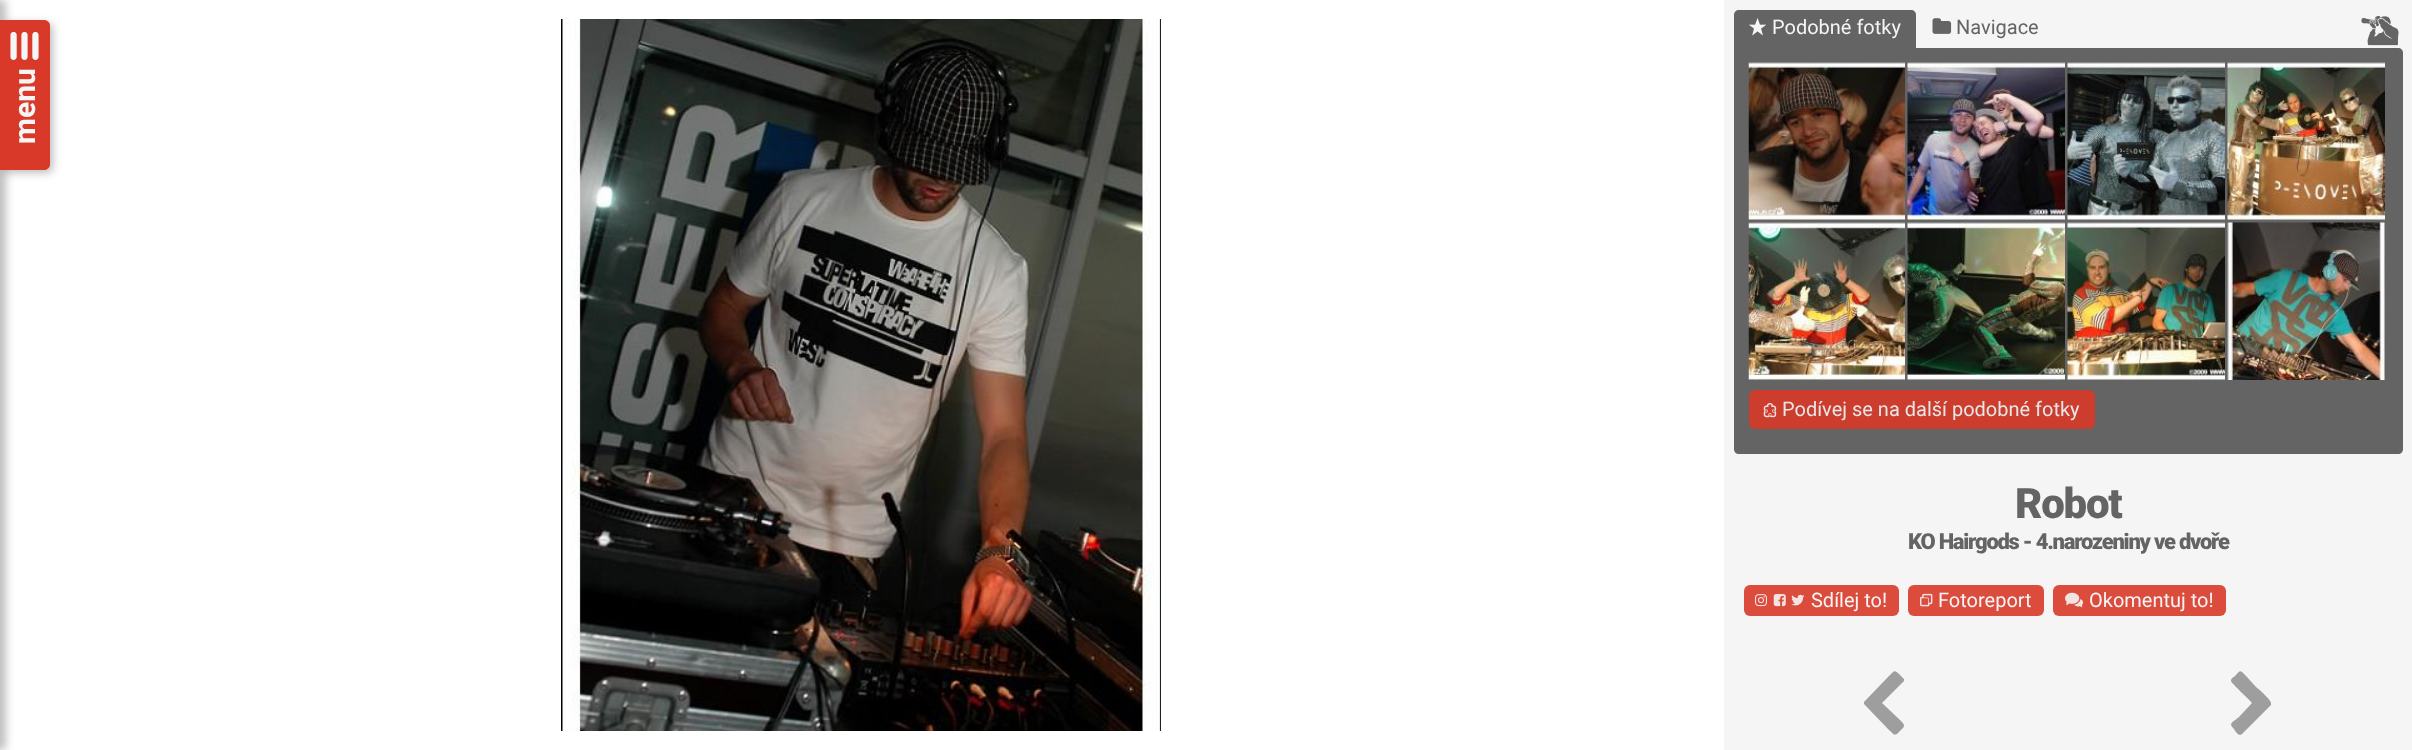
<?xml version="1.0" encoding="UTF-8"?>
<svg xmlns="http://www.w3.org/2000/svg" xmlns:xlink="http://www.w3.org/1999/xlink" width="2412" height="750">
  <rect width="100%" height="100%" fill="#ffffff" />
  <rect x="-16" width="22" height="750" rx="4" fill="#000000" fill-opacity="0.25" filter="blur(4px)" />
  <rect x="3" y="23" width="50" height="150" rx="6" fill="#000000" fill-opacity="0.25" filter="blur(4px)" />
  <path d="M 0 20 h 44 c 3.5 0 6 2.5 6 6 v 138 c 0 3.5 -2.5 6 -6 6 h -44 z" fill="#d83928" />
  <image x="10" y="31" width="29" height="29" xlink:href="image1.png" />
  <image x="561" y="19" width="600" height="712" xlink:href="image2.png" />
  <rect x="1724" width="688" height="750" fill="#f5f5f5" />
  <path d="M 1739 10 h 172 c 3 0 5 2 5 5 v 33 h -182 v -33 c 0 -3 2 -5 5 -5 z" fill="#646464" />
  <image x="1749" y="18" width="18" height="18" xlink:href="image3.png" />
  <image x="1932" y="18" width="20" height="16" xlink:href="image4.png" />
  <image x="2361" y="15" width="38" height="31" xlink:href="image5.png" />
  <path d="M 1734 48 h 664 c 3 0 5 2 5 5 v 396 c 0 3 -2 5 -5 5 h -659 c -3 0 -5 -2 -5 -5 z" fill="#646464" />
  <image x="1748" y="62" width="157" height="158" xlink:href="image6.png" />
  <image x="1907" y="62" width="158" height="158" xlink:href="image7.png" />
  <image x="2067" y="62" width="158" height="158" xlink:href="image8.png" />
  <image x="2227" y="62" width="158" height="158" xlink:href="image9.png" />
  <image x="1748" y="222" width="157" height="158" xlink:href="image10.png" />
  <image x="1907" y="222" width="158" height="158" xlink:href="image11.png" />
  <image x="2067" y="222" width="158" height="158" xlink:href="image12.png" />
  <image x="2227" y="222" width="158" height="158" xlink:href="image13.png" />
  <rect x="1749" y="390" width="346" height="39" rx="6" fill="#cc3d2e" />
  <image x="1763" y="403" width="14" height="15" xlink:href="image14.png" />
  <rect x="1744" y="585" width="155" height="31" rx="6" fill="#db4c3d" />
  <image x="1755" y="594" width="12" height="13" xlink:href="image15.png" />
  <image x="1773" y="594" width="13" height="13" xlink:href="image16.png" />
  <image x="1791" y="594" width="14" height="12" xlink:href="image17.png" />
  <rect x="1908" y="585" width="136" height="31" rx="6" fill="#db4c3d" />
  <image x="1920" y="593" width="13" height="14" xlink:href="image18.png" />
  <rect x="2053" y="585" width="173" height="31" rx="6" fill="#db4c3d" />
  <image x="2065" y="592" width="19" height="16" xlink:href="image19.png" />
  <path d="M 1903 682 l -21 21 l 18 17 c 6 6 5 6 -1 12 c -5 5 -5 2 -11 -3 l -24 -25 v -2 l 24 -25 c 6 -6 6 -8 11 -3 l 5 5 c 0 1 0 3 -1 3 z" fill="#9e9e9e" />
  <path d="M 2271 705 l -29 29 c -3 3 -7 -3 -8 -5 c -6 -6 -2 -6 5 -12 l 13 -14 c -2 -3 -21 -20 -21 -22 c 0 -3 3 -4 4 -5 c 6 -7 5 -6 12 1 l 9 10 c 3 2 15 13 15 16 z" fill="#9e9e9e" />
  <text x="35" y="144" transform="rotate(-90 35 144)" style="font-family: Roboto; font-size: 30px; font-weight: bold; fill: #f5f5f5">menu</text>
  <text x="1772" y="34" style="font-family: Roboto; font-size: 20px; fill: #f5f5f5">Podobné fotky</text>
  <text x="1956" y="34" style="font-family: Roboto; font-size: 20px; fill: #646464">Navigace</text>
  <text x="1782" y="416" style="font-family: Roboto; font-size: 20px; fill: #e7e7e7">Podívej se na další podobné fotky</text>
  <text x="2015" y="518" style="font-family: Roboto; font-size: 42px; font-weight: 900; letter-spacing: -1.25px; fill: #646464">Robot</text>
  <text x="1908" y="549" style="font-family: Roboto; font-size: 22px; font-weight: 900; letter-spacing: -1.25px; fill: #646464">KO Hairgods - 4.narozeniny ve dvoře</text>
  <text x="1811" y="607" style="font-family: Roboto; font-size: 20px; fill: #f5f5f5">Sdílej to!</text>
  <text x="1938" y="607" style="font-family: Roboto; font-size: 20px; fill: #f5f5f5">Fotoreport</text>
  <text x="2089" y="607" style="font-family: Roboto; font-size: 20px; fill: #f5f5f5">Okomentuj to!</text>
</svg>
